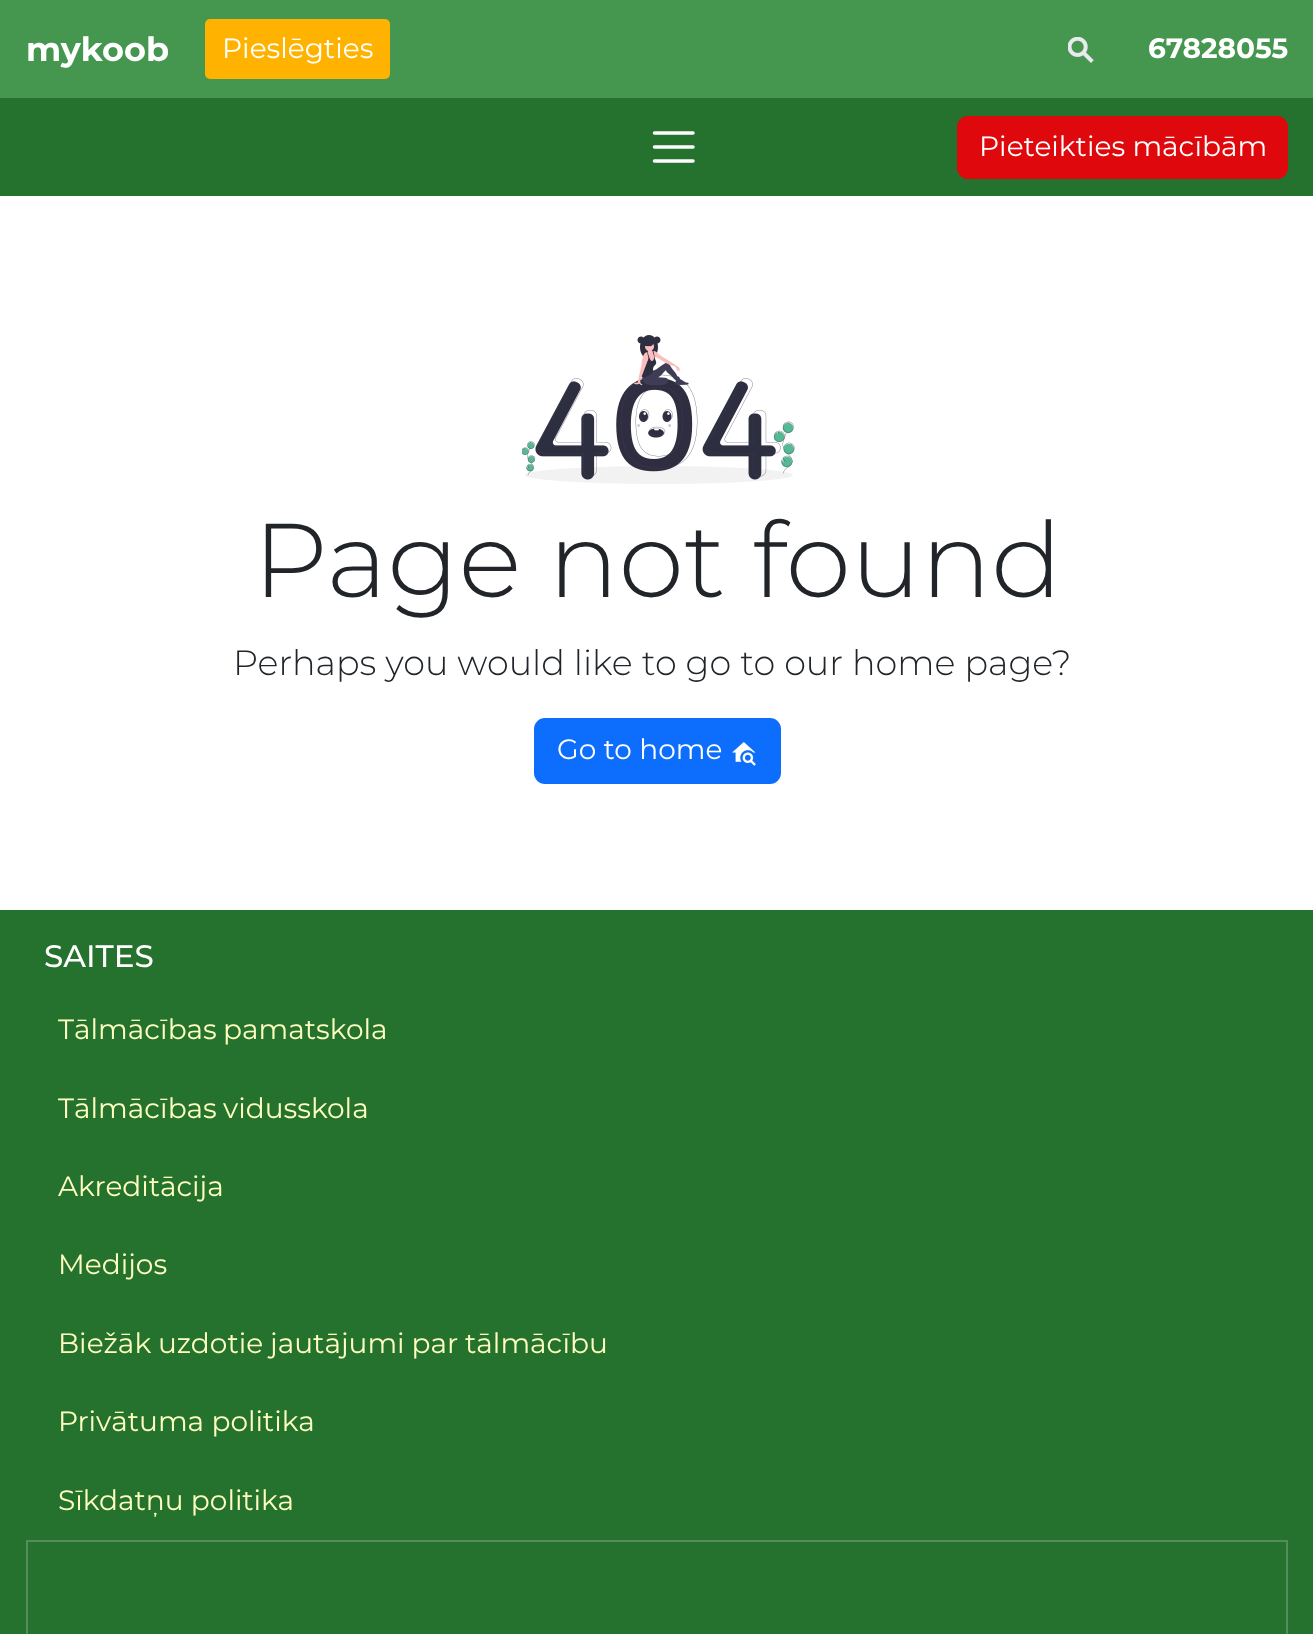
<?xml version="1.0" encoding="UTF-8"?>
<svg xmlns="http://www.w3.org/2000/svg" xmlns:xlink="http://www.w3.org/1999/xlink" width="1313" height="1634">
  <rect width="100%" height="100%" fill="#ffffff" />
  <rect width="1313" height="98" fill="#45964f" />
  <rect x="205" y="19" width="185" height="60" rx="5" fill="#ffb300" />
  <image x="1068" y="37" width="26" height="26" xlink:href="image1.png" />
  <rect y="98" width="1313" height="98" fill="#25722f" />
  <path d="M 654.5 133 h 38.5 m -38.5 14 h 38.5 m -38.5 14 h 38.5" fill="none" stroke="#ffffff" stroke-width="3.5" stroke-linecap="round" />
  <rect x="957" y="116" width="331" height="63" rx="11" fill="#df080c" />
  <image x="522" y="335" width="273" height="149" xlink:href="image2.png" />
  <rect x="535" y="719" width="245" height="64" rx="10" fill="#0d6efd" stroke="#0d6efd" stroke-width="2" />
  <image x="732" y="742" width="24" height="24" xlink:href="image3.png" />
  <rect y="910" width="1313" height="724" fill="#25722f" />
  <rect x="27" y="1541" width="1260" height="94" fill="none" stroke="#548d5b" stroke-width="2" />
  <text x="26" y="61" style="font-family: Montserrat; font-size: 33.5px; font-weight: bold; fill: #ffffff">mykoob</text>
  <text x="222" y="58" style="font-family: Montserrat; font-size: 28px; fill: #ffffff">Pieslēgties</text>
  <text x="1148" y="58" style="font-family: Montserrat; font-size: 28px; font-weight: bold; fill: #ffffff">67828055</text>
  <text x="979" y="156" style="font-family: Montserrat; font-size: 28px; fill: #ffffff">Pieteikties mācībām</text>
  <text x="253" y="597" style="font-family: Montserrat; font-size: 104.75px; font-weight: 300; fill: #212529">Page not found</text>
  <text x="233" y="675" style="font-family: Montserrat; font-size: 35px; font-weight: 300; fill: #212529">Perhaps you would like to go to our home page?</text>
  <text x="557" y="759" style="font-family: Montserrat; font-size: 28px; fill: #ffffff">Go to home</text>
  <text x="44" y="967" style="font-family: Montserrat; font-size: 31px; font-weight: 500; fill: #ffffff">SAITES</text>
  <text x="58" y="1039" word-spacing="-1" style="font-family: Montserrat; font-size: 28px; fill: #ffffbf">Tālmācības pamatskola</text>
  <text x="58" y="1118" word-spacing="-1" style="font-family: Montserrat; font-size: 28px; fill: #ffffbf">Tālmācības vidusskola</text>
  <text x="58" y="1196" style="font-family: Montserrat; font-size: 28px; fill: #ffffbf">Akreditācija</text>
  <text x="58" y="1274" style="font-family: Montserrat; font-size: 28px; fill: #ffffbf">Medijos</text>
  <text x="58" y="1353" word-spacing="-0.5" style="font-family: Montserrat; font-size: 28px; fill: #ffffbf">Biežāk uzdotie jautājumi par tālmācību</text>
  <text x="58" y="1431" style="font-family: Montserrat; font-size: 28px; fill: #ffffbf">Privātuma politika</text>
  <text x="58" y="1510" style="font-family: Montserrat; font-size: 28px; fill: #ffffbf">Sīkdatņu politika</text>
</svg>
